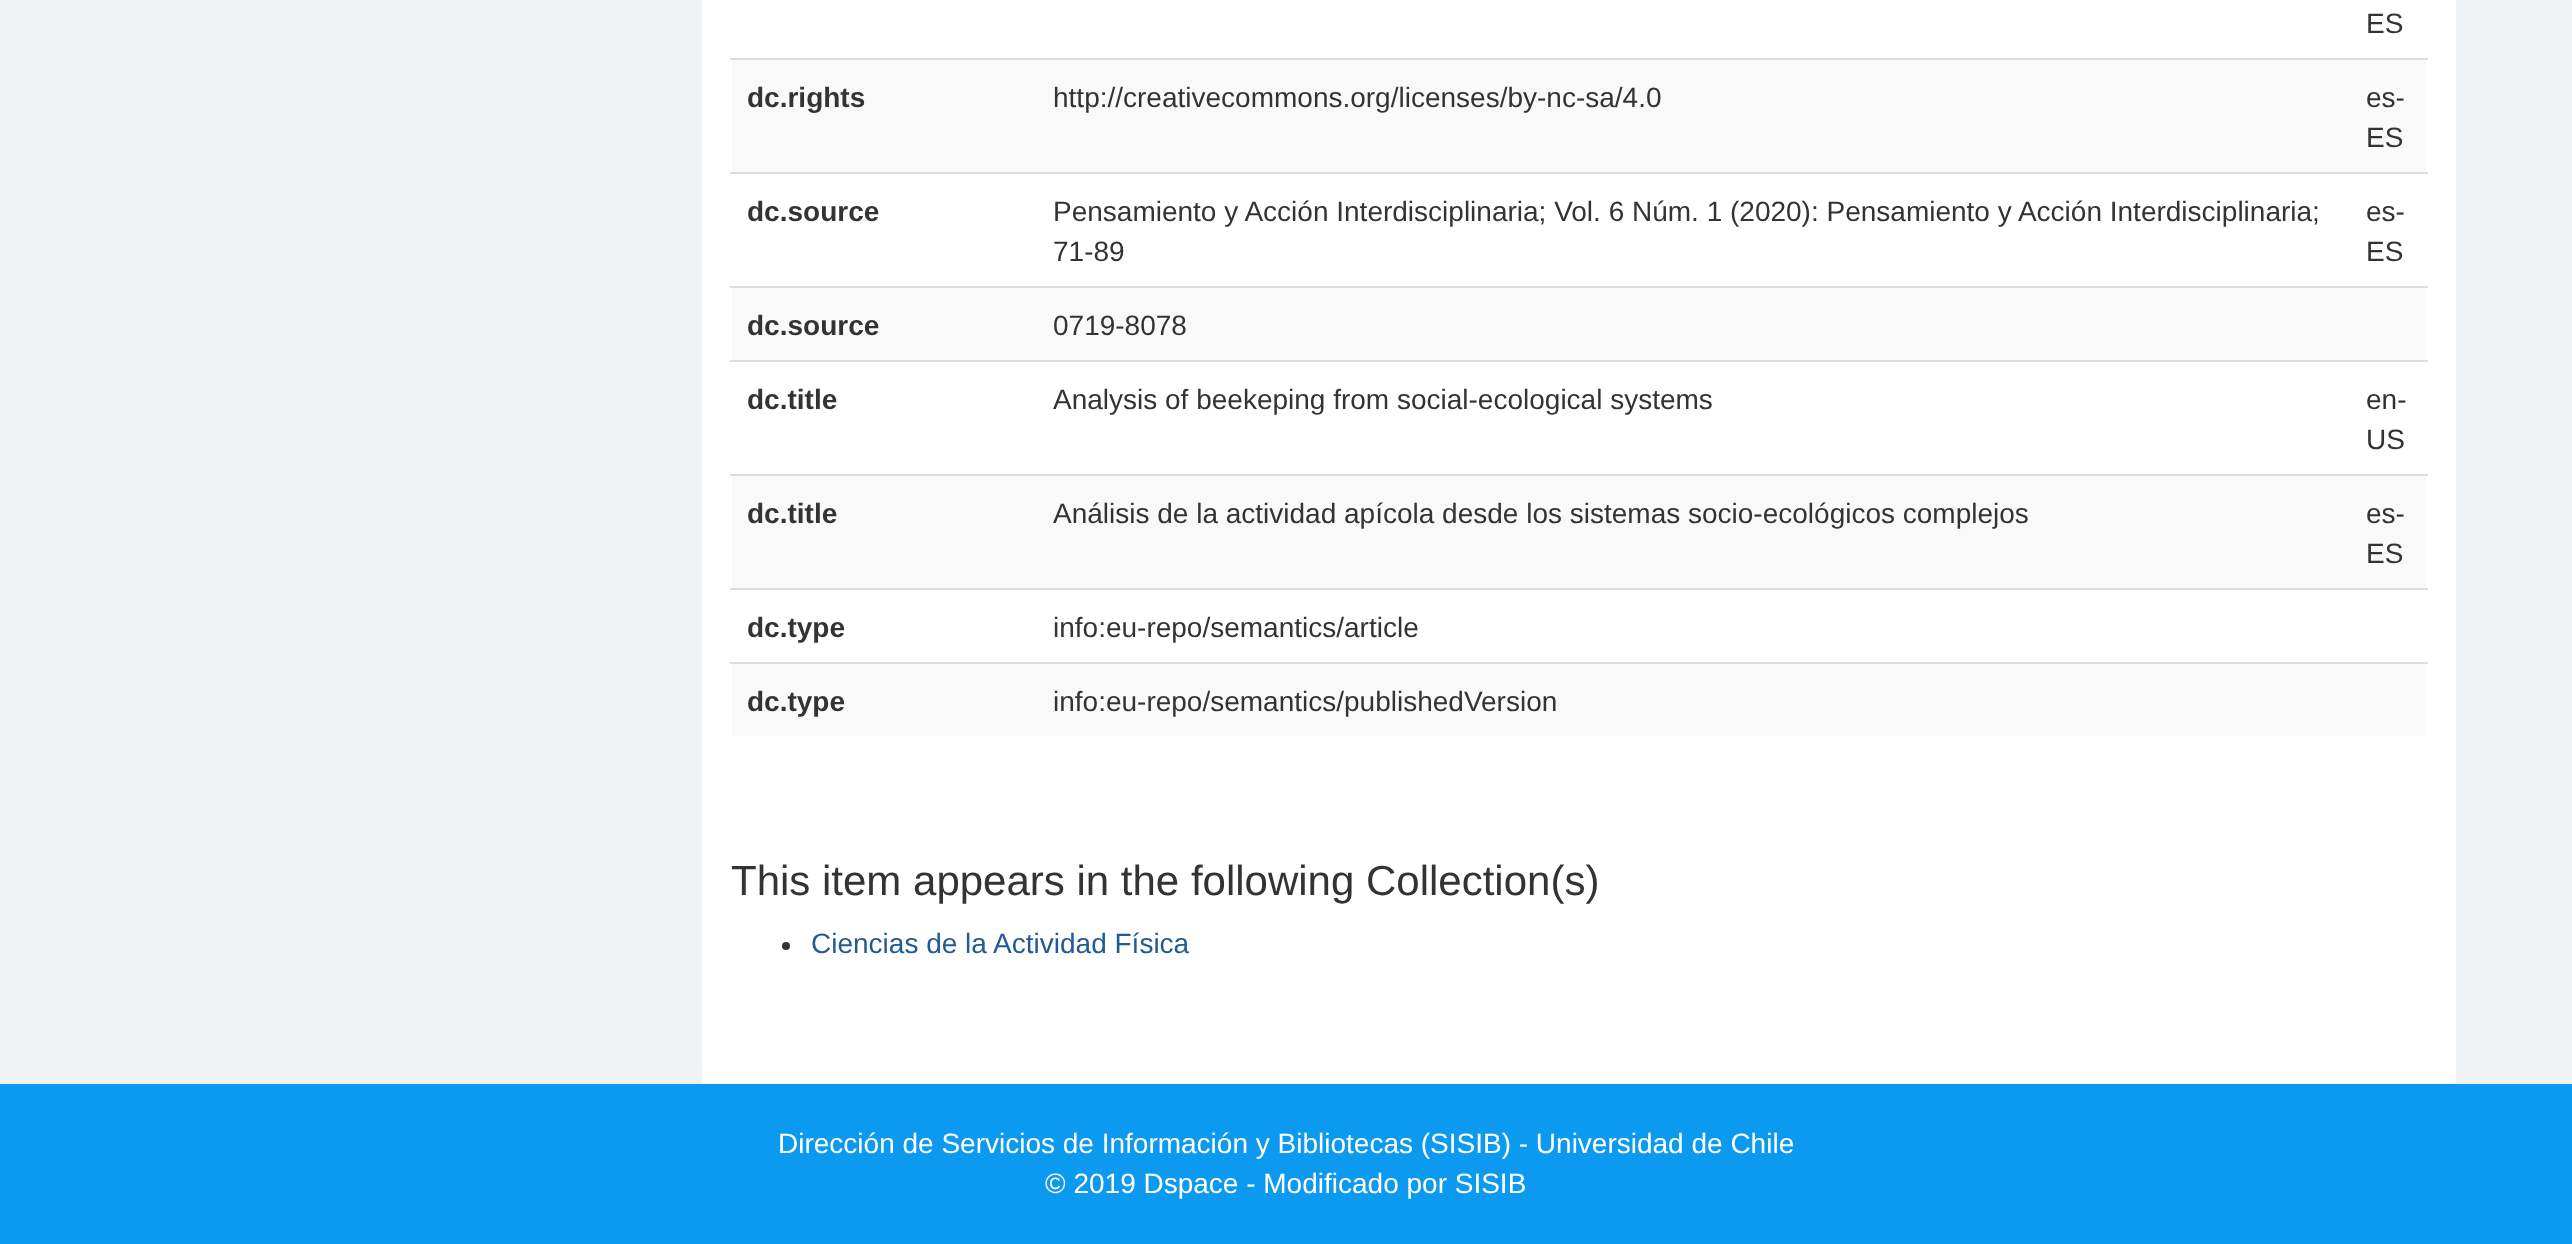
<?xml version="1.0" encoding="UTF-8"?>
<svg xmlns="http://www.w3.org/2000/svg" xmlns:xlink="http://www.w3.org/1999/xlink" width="2572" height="1244">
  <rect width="100%" height="100%" fill="#f0f3f5" />
  <rect x="702" width="1754" height="1084" fill="#ffffff" />
  <rect x="732" y="60" width="1694" height="112" fill="#f9f9f9" />
  <rect x="730" y="58" width="1698" height="2" fill="#dddddd" />
  <rect x="730" y="172" width="1698" height="2" fill="#dddddd" />
  <rect x="732" y="288" width="1694" height="72" fill="#f9f9f9" />
  <rect x="730" y="286" width="1698" height="2" fill="#dddddd" />
  <rect x="730" y="360" width="1698" height="2" fill="#dddddd" />
  <rect x="732" y="476" width="1694" height="112" fill="#f9f9f9" />
  <rect x="730" y="474" width="1698" height="2" fill="#dddddd" />
  <rect x="730" y="588" width="1698" height="2" fill="#dddddd" />
  <rect x="732" y="664" width="1694" height="72" fill="#f9f9f9" />
  <rect x="730" y="662" width="1698" height="2" fill="#dddddd" />
  <circle cx="786" cy="946" r="4" fill="#333333" />
  <rect y="1084" width="2572" height="160" fill="#0c9af0" />
  <text x="2366" y="33" style="font-family: Liberation Sans; font-size: 28px; fill: #333333">ES</text>
  <text x="747" y="107" style="font-family: Liberation Sans; font-size: 28px; font-weight: bold; fill: #333333">dc.rights</text>
  <text x="1053" y="107" style="font-family: Liberation Sans; font-size: 28px; fill: #333333">http://creativecommons.org/licenses/by-nc-sa/4.0</text>
  <text x="2366" y="107" style="font-family: Liberation Sans; font-size: 28px; fill: #333333">es-</text>
  <text x="2366" y="147" style="font-family: Liberation Sans; font-size: 28px; fill: #333333">ES</text>
  <text x="747" y="221" style="font-family: Liberation Sans; font-size: 28px; font-weight: bold; fill: #333333">dc.source</text>
  <text x="1053" y="221" style="font-family: Liberation Sans; font-size: 28px; fill: #333333">Pensamiento y Acción Interdisciplinaria; Vol. 6 Núm. 1 (2020): Pensamiento y Acción Interdisciplinaria;</text>
  <text x="1053" y="261" style="font-family: Liberation Sans; font-size: 28px; fill: #333333">71-89</text>
  <text x="2366" y="221" style="font-family: Liberation Sans; font-size: 28px; fill: #333333">es-</text>
  <text x="2366" y="261" style="font-family: Liberation Sans; font-size: 28px; fill: #333333">ES</text>
  <text x="747" y="335" style="font-family: Liberation Sans; font-size: 28px; font-weight: bold; fill: #333333">dc.source</text>
  <text x="1053" y="335" style="font-family: Liberation Sans; font-size: 28px; fill: #333333">0719-8078</text>
  <text x="747" y="409" style="font-family: Liberation Sans; font-size: 28px; font-weight: bold; fill: #333333">dc.title</text>
  <text x="1053" y="409" style="font-family: Liberation Sans; font-size: 28px; fill: #333333">Analysis of beekeping from social-ecological systems</text>
  <text x="2366" y="409" style="font-family: Liberation Sans; font-size: 28px; fill: #333333">en-</text>
  <text x="2366" y="449" style="font-family: Liberation Sans; font-size: 28px; fill: #333333">US</text>
  <text x="747" y="523" style="font-family: Liberation Sans; font-size: 28px; font-weight: bold; fill: #333333">dc.title</text>
  <text x="1053" y="523" style="font-family: Liberation Sans; font-size: 28px; fill: #333333">Análisis de la actividad apícola desde los sistemas socio-ecológicos complejos</text>
  <text x="2366" y="523" style="font-family: Liberation Sans; font-size: 28px; fill: #333333">es-</text>
  <text x="2366" y="563" style="font-family: Liberation Sans; font-size: 28px; fill: #333333">ES</text>
  <text x="747" y="637" style="font-family: Liberation Sans; font-size: 28px; font-weight: bold; fill: #333333">dc.type</text>
  <text x="1053" y="637" style="font-family: Liberation Sans; font-size: 28px; fill: #333333">info:eu-repo/semantics/article</text>
  <text x="747" y="711" style="font-family: Liberation Sans; font-size: 28px; font-weight: bold; fill: #333333">dc.type</text>
  <text x="1053" y="711" style="font-family: Liberation Sans; font-size: 28px; fill: #333333">info:eu-repo/semantics/publishedVersion</text>
  <text x="731" y="895" style="font-family: Liberation Sans; font-size: 42px; fill: #333333">This item appears in the following Collection(s)</text>
  <text x="811" y="953" style="font-family: Liberation Sans; font-size: 28px; fill: #215b95">Ciencias de la Actividad Física</text>
  <text x="778" y="1153" style="font-family: Liberation Sans; font-size: 28px; fill: #ffffff">Dirección de Servicios de Información y Bibliotecas (SISIB) - Universidad de Chile</text>
  <text x="1045" y="1193" style="font-family: Liberation Sans; font-size: 28px; fill: #ffffff">© 2019 Dspace - Modificado por SISIB</text>
</svg>
